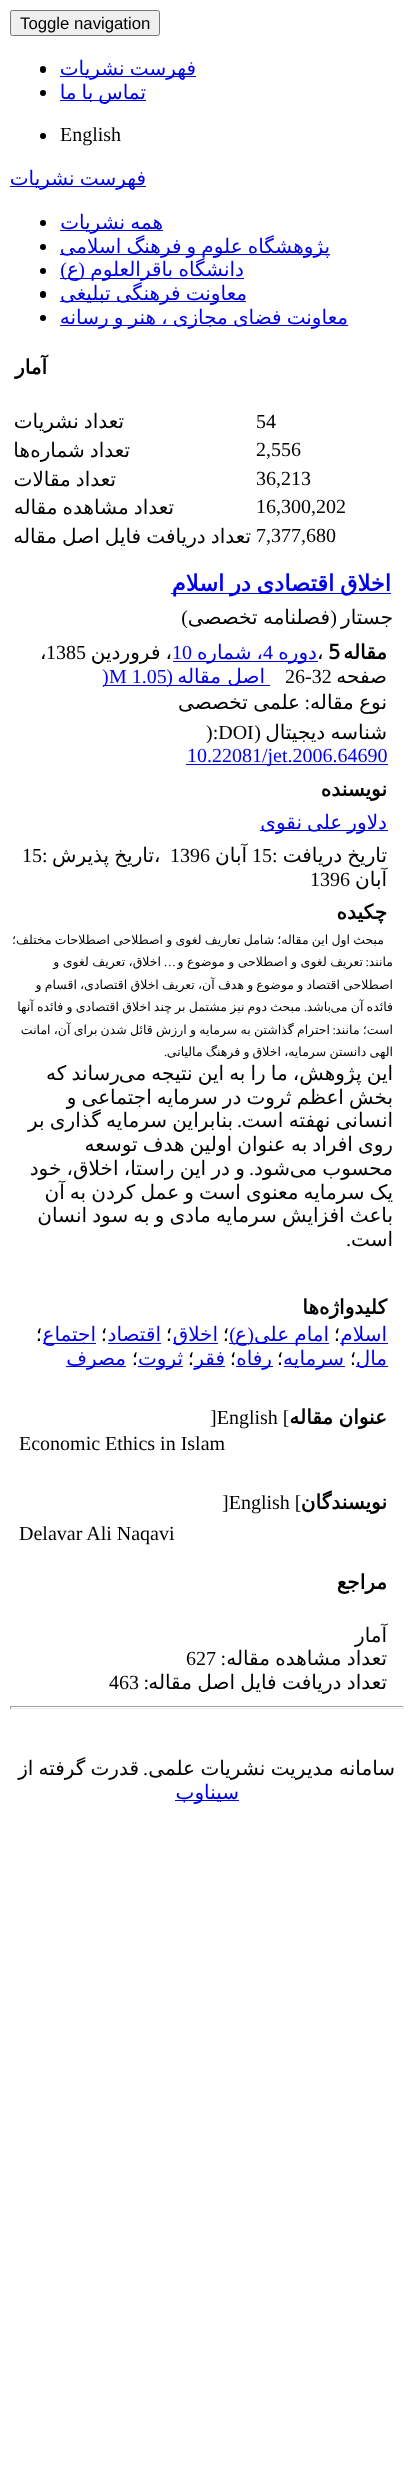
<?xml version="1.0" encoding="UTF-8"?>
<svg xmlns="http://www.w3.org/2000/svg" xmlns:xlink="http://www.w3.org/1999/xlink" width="413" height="2489">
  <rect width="100%" height="100%" fill="#ffffff" />
  <rect x="10.5" y="10.5" width="149" height="25" rx="2" fill="#efefef" stroke="#767676" />
  <rect x="60" y="76" width="136" height="1" fill="#0000ee" />
  <rect x="40" y="66" width="6" height="7" rx="3" fill="#000000" />
  <rect x="60" y="100" width="86" height="1" fill="#0000ee" />
  <circle cx="43" cy="93" r="3" fill="#000000" />
  <circle cx="43" cy="136" r="3" fill="#000000" />
  <rect x="10" y="186" width="136" height="1" fill="#0000ee" />
  <rect x="60" y="230" width="103" height="1" fill="#0000ee" />
  <circle cx="43" cy="223" r="3" fill="#000000" />
  <rect x="60" y="254" width="270" height="1" fill="#0000ee" />
  <circle cx="43" cy="247" r="3" fill="#000000" />
  <rect x="60" y="278" width="184" height="1" fill="#0000ee" />
  <circle cx="43" cy="271" r="3" fill="#000000" />
  <rect x="60" y="301" width="186" height="1" fill="#0000ee" />
  <rect x="40" y="291" width="6" height="7" rx="3" fill="#000000" />
  <rect x="60" y="325" width="288" height="1" fill="#0000ee" />
  <circle cx="43" cy="318" r="3" fill="#000000" />
  <rect x="171" y="593" width="220" height="1" fill="#0000ee" />
  <rect x="173" y="661" width="145" height="1" fill="#0000ee" />
  <rect x="166" y="685" width="104" height="1" fill="#0000ee" />
  <rect x="103" y="685" width="63" height="1" fill="#0000ee" />
  <rect x="186" y="764" width="202" height="1" fill="#0000ee" />
  <rect x="260" y="830" width="128" height="1" fill="#0000ee" />
  <rect x="340" y="1343" width="48" height="1" fill="#0000ee" />
  <rect x="229" y="1343" width="100" height="1" fill="#0000ee" />
  <rect x="173" y="1343" width="45" height="1" fill="#0000ee" />
  <rect x="108" y="1343" width="53" height="1" fill="#0000ee" />
  <rect x="43" y="1343" width="53" height="1" fill="#0000ee" />
  <rect x="356" y="1366" width="32" height="1" fill="#0000ee" />
  <rect x="284" y="1366" width="61" height="1" fill="#0000ee" />
  <rect x="236" y="1366" width="37" height="1" fill="#0000ee" />
  <rect x="194" y="1366" width="31" height="1" fill="#0000ee" />
  <rect x="138" y="1366" width="45" height="1" fill="#0000ee" />
  <rect x="66" y="1366" width="60" height="1" fill="#0000ee" />
  <rect x="10" y="1706" width="394" height="1" fill="#9f9f9f" />
  <rect x="403" y="1706" width="1" height="3" fill="#eeeeee" />
  <rect x="10" y="1708" width="394" height="1" fill="#eeeeee" />
  <rect x="10" y="1706" width="1" height="3" fill="#9f9f9f" />
  <rect x="175" y="1800" width="64" height="1" fill="#0000ee" />
  <text x="20" y="29" style="font-family: Liberation Sans; font-size: 16.75px; fill: #000000">Toggle navigation</text>
  <text x="196" y="75" word-spacing="-1.25" style="font-family: DejaVu Sans; font-size: 20px; direction: rtl; fill: #0000ee">فهرست نشریات</text>
  <text x="146" y="99" word-spacing="-1.25" style="font-family: DejaVu Sans; font-size: 20px; direction: rtl; fill: #0000ee">تماس با ما</text>
  <text x="60" y="141" style="font-family: Liberation Serif; font-size: 20px; fill: #000000">English</text>
  <text x="146" y="185" word-spacing="-1.25" style="font-family: DejaVu Sans; font-size: 20px; direction: rtl; fill: #0000ee">فهرست نشریات</text>
  <text x="163" y="229" word-spacing="-1.25" style="font-family: DejaVu Sans; font-size: 20px; direction: rtl; fill: #0000ee">همه نشریات</text>
  <text x="330" y="253" word-spacing="-1.25" style="font-family: DejaVu Sans; font-size: 20px; direction: rtl; fill: #0000ee">پژوهشگاه علوم و فرهنگ اسلامی</text>
  <text x="244" y="276" word-spacing="-1" style="font-family: DejaVu Sans; font-size: 20px; direction: rtl; fill: #0000ee">دانشگاه باقرالعلوم</text>
  <text x="85" y="276" style="font-family: Liberation Serif; font-size: 20px; direction: rtl; fill: #0000ee">(</text>
  <text x="79" y="276" style="font-family: DejaVu Sans; font-size: 20px; direction: rtl; fill: #0000ee">ع</text>
  <text x="67" y="276" style="font-family: Liberation Serif; font-size: 20px; direction: rtl; fill: #0000ee">)</text>
  <text x="247" y="300" word-spacing="-1.25" style="font-family: DejaVu Sans; font-size: 20px; direction: rtl; fill: #0000ee">معاونت فرهنگی تبلیغی</text>
  <text x="348" y="324" word-spacing="-1.25" style="font-family: DejaVu Sans; font-size: 20px; direction: rtl; fill: #0000ee">معاونت فضای مجازی ، هنر و رسانه</text>
  <text x="47" y="374" style="font-family: DejaVu Sans; font-size: 20px; font-weight: bold; direction: rtl; fill: #000000">آمار</text>
  <text x="256" y="428" style="font-family: Liberation Serif; font-size: 20px; fill: #000000">54</text>
  <text x="124" y="428" word-spacing="-1.25" style="font-family: DejaVu Sans; font-size: 20px; direction: rtl; fill: #000000">تعداد نشریات</text>
  <text x="256" y="456" style="font-family: Liberation Serif; font-size: 20px; fill: #000000">2,556</text>
  <text x="130" y="457" word-spacing="-1.25" style="font-family: DejaVu Sans; font-size: 20px; direction: rtl; fill: #000000">تعداد شماره</text>
  <text x="30" y="457" style="font-family: DejaVu Sans; font-size: 20px; direction: rtl; fill: #000000">ها</text>
  <text x="256" y="485" style="font-family: Liberation Serif; font-size: 20px; fill: #000000">36,213</text>
  <text x="116" y="486" word-spacing="-1.25" style="font-family: DejaVu Sans; font-size: 20px; direction: rtl; fill: #000000">تعداد مقالات</text>
  <text x="256" y="513" style="font-family: Liberation Serif; font-size: 20px; fill: #000000">16,300,202</text>
  <text x="174" y="514" word-spacing="-1.25" style="font-family: DejaVu Sans; font-size: 20px; direction: rtl; fill: #000000">تعداد مشاهده مقاله</text>
  <text x="256" y="542" style="font-family: Liberation Serif; font-size: 20px; fill: #000000">7,377,680</text>
  <text x="251" y="543" word-spacing="-1.25" style="font-family: DejaVu Sans; font-size: 20px; direction: rtl; fill: #000000">تعداد دریافت فایل اصل مقاله</text>
  <text x="391" y="591" word-spacing="-1.5" style="font-family: DejaVu Sans; font-size: 22.5px; font-weight: bold; direction: rtl; fill: #0000ee">اخلاق اقتصادی در اسلام</text>
  <text x="393" y="624" style="font-family: DejaVu Sans; font-size: 20px; direction: rtl; fill: #000000">جستار</text>
  <text x="337" y="624" style="font-family: Liberation Serif; font-size: 20px; direction: rtl; fill: #000000">(</text>
  <text x="330" y="624" word-spacing="-1" style="font-family: DejaVu Sans; font-size: 20px; direction: rtl; fill: #000000">فصلنامه تخصصی</text>
  <text x="188" y="624" style="font-family: Liberation Serif; font-size: 20px; direction: rtl; fill: #000000">)</text>
  <text x="387" y="659" style="font-family: DejaVu Sans; font-size: 20px; font-weight: bold; direction: rtl; fill: #000000">مقاله</text>
  <text x="328" y="659" style="font-family: DejaVu Sans; font-size: 20px; font-weight: bold; fill: #000000">5</text>
  <text x="317" y="659" style="font-family: DejaVu Sans; font-size: 20px; fill: #000000">،</text>
  <text x="317" y="659" style="font-family: DejaVu Sans; font-size: 20px; direction: rtl; fill: #0000ee">دوره</text>
  <text x="263" y="659" word-spacing="-1.25" style="font-family: DejaVu Sans; font-size: 20px; direction: rtl; fill: #0000ee">، شماره</text>
  <text x="263" y="659" style="font-family: Liberation Serif; font-size: 20px; fill: #0000ee">4</text>
  <text x="172" y="659" style="font-family: Liberation Serif; font-size: 20px; fill: #0000ee">10</text>
  <text x="172" y="659" word-spacing="-1.25" style="font-family: DejaVu Sans; font-size: 20px; direction: rtl; fill: #000000">، فروردین</text>
  <text x="46" y="659" style="font-family: Liberation Serif; font-size: 20px; fill: #000000">1385</text>
  <text x="40" y="659" style="font-family: DejaVu Sans; font-size: 20px; fill: #000000">،</text>
  <text x="387" y="683" style="font-family: DejaVu Sans; font-size: 20px; direction: rtl; fill: #000000">صفحه</text>
  <text x="285" y="683" style="font-family: Liberation Serif; font-size: 20px; fill: #000000">26-32</text>
  <text x="265" y="683" style="font-family: DejaVu Sans; font-size: 20px; direction: rtl; fill: #0000ee">اصل مقاله</text>
  <text x="173" y="683" style="font-family: Liberation Serif; font-size: 20px; direction: rtl; fill: #0000ee">(</text>
  <text x="109" y="683" style="font-family: Liberation Serif; font-size: 20px; fill: #0000ee">M 1.05</text>
  <text x="102" y="683" style="font-family: Liberation Serif; font-size: 20px; fill: #0000ee">)</text>
  <text x="387" y="709" word-spacing="-1" style="font-family: DejaVu Sans; font-size: 20px; direction: rtl; fill: #000000">نوع مقاله</text>
  <text x="310" y="709" style="font-family: Liberation Serif; font-size: 20px; direction: rtl; fill: #000000">:</text>
  <text x="300" y="709" word-spacing="-1" style="font-family: DejaVu Sans; font-size: 20px; direction: rtl; fill: #000000">علمی تخصصی</text>
  <text x="387" y="739" word-spacing="-1" style="font-family: DejaVu Sans; font-size: 20px; direction: rtl; fill: #000000">شناسه دیجیتال</text>
  <text x="261" y="739" style="font-family: Liberation Serif; font-size: 20px; direction: rtl; fill: #000000">(</text>
  <text x="206" y="739" style="font-family: Liberation Serif; font-size: 20px; fill: #000000">):DOI</text>
  <text x="187" y="762" style="font-family: Liberation Serif; font-size: 20px; fill: #0000ee">10.22081/jet.2006.64690</text>
  <text x="387" y="796" style="font-family: DejaVu Sans; font-size: 20px; font-weight: bold; direction: rtl; fill: #000000">نویسنده</text>
  <text x="387" y="829" word-spacing="-1.25" style="font-family: DejaVu Sans; font-size: 20px; direction: rtl; fill: #0000ee">دلاور علی</text>
  <text x="302" y="829" style="font-family: DejaVu Sans; font-size: 20px; direction: rtl; fill: #0000ee">نقوی</text>
  <text x="387" y="862" word-spacing="-1.25" style="font-family: DejaVu Sans; font-size: 20px; direction: rtl; fill: #000000">تاریخ دریافت</text>
  <text x="272" y="862" style="font-family: Liberation Serif; font-size: 20px; fill: #000000">:</text>
  <text x="252" y="862" style="font-family: Liberation Serif; font-size: 20px; fill: #000000">15</text>
  <text x="247" y="862" style="font-family: DejaVu Sans; font-size: 20px; direction: rtl; fill: #000000">آبان</text>
  <text x="170" y="862" style="font-family: Liberation Serif; font-size: 20px; fill: #000000">1396</text>
  <text x="154" y="862" style="font-family: DejaVu Sans; font-size: 20px; fill: #000000">،</text>
  <text x="154" y="862" word-spacing="-1.25" style="font-family: DejaVu Sans; font-size: 20px; direction: rtl; fill: #000000">تاریخ پذیرش</text>
  <text x="42" y="862" style="font-family: Liberation Serif; font-size: 20px; fill: #000000">:</text>
  <text x="22" y="862" style="font-family: Liberation Serif; font-size: 20px; fill: #000000">15</text>
  <text x="387" y="886" style="font-family: DejaVu Sans; font-size: 20px; direction: rtl; fill: #000000">آبان</text>
  <text x="310" y="886" style="font-family: Liberation Serif; font-size: 20px; fill: #000000">1396</text>
  <text x="387" y="919" style="font-family: DejaVu Sans; font-size: 20px; font-weight: bold; direction: rtl; fill: #000000">چکیده</text>
  <text x="384" y="944" word-spacing="-0.8" style="font-family: DejaVu Sans; font-size: 12.5px; direction: rtl; fill: #000000">مبحث اول این مقاله؛ شامل تعاریف لغوی و اصطلاحی اصطلاحات مختلف؛</text>
  <text x="393" y="966" style="font-family: DejaVu Sans; font-size: 12.5px; direction: rtl; fill: #000000">مانند</text>
  <text x="363" y="966" word-spacing="-0.5" style="font-family: DejaVu Sans; font-size: 12.5px; direction: rtl; fill: #000000">تعریف لغوی و اصطلاحی و موضوع و</text>
  <text x="369" y="966" style="font-family: Liberation Serif; font-size: 12.5px; direction: rtl; fill: #000000">:</text>
  <text x="176" y="966" style="font-family: Liberation Serif; font-size: 12.5px; direction: rtl; fill: #000000">…</text>
  <text x="161" y="966" word-spacing="-0.5" style="font-family: DejaVu Sans; font-size: 12.5px; direction: rtl; fill: #000000">اخلاق، تعریف لغوی و</text>
  <text x="393" y="989" word-spacing="-0.8" style="font-family: DejaVu Sans; font-size: 12.5px; direction: rtl; fill: #000000">اصطلاحی اقتصاد و موضوع و هدف آن، تعریف اخلاق اقتصادی، اقسام و</text>
  <text x="393" y="1011" word-spacing="-0.75" style="font-family: DejaVu Sans; font-size: 12.5px; direction: rtl; fill: #000000">فائده آن می</text>
  <text x="301" y="1011" word-spacing="-0.75" style="font-family: DejaVu Sans; font-size: 12.5px; direction: rtl; fill: #000000">مبحث دوم نیز مشتمل بر چند اخلاق اقتصادی و فائده آنها</text>
  <text x="331" y="1011" style="font-family: DejaVu Sans; font-size: 12.5px; direction: rtl; fill: #000000">باشد</text>
  <text x="307" y="1011" style="font-family: Liberation Serif; font-size: 12.5px; direction: rtl; fill: #000000">.</text>
  <text x="393" y="1034" word-spacing="-0.75" style="font-family: DejaVu Sans; font-size: 12.5px; direction: rtl; fill: #000000">است؛ مانند</text>
  <text x="330" y="1034" word-spacing="-0.75" style="font-family: DejaVu Sans; font-size: 12.5px; direction: rtl; fill: #000000">احترام گذاشتن به سرمایه و ارزش قائل شدن برای آن، امانت</text>
  <text x="336" y="1034" style="font-family: Liberation Serif; font-size: 12.5px; direction: rtl; fill: #000000">:</text>
  <text x="393" y="1056" word-spacing="-0.8" style="font-family: DejaVu Sans; font-size: 12.5px; direction: rtl; fill: #000000">الهی دانستن سرمایه، اخلاق و فرهنگ مالیاتی</text>
  <text x="167" y="1056" style="font-family: Liberation Serif; font-size: 12.5px; direction: rtl; fill: #000000">.</text>
  <text x="393" y="1080" word-spacing="-1.25" style="font-family: DejaVu Sans; font-size: 20px; direction: rtl; fill: #000000">این پژوهش، ما را به این نتیجه می</text>
  <text x="120" y="1080" word-spacing="-1.25" style="font-family: DejaVu Sans; font-size: 20px; direction: rtl; fill: #000000">رساند که</text>
  <text x="393" y="1104" word-spacing="-1.25" style="font-family: DejaVu Sans; font-size: 20px; direction: rtl; fill: #000000">بخش اعظم ثروت در سرمایه اجتماعی و</text>
  <text x="393" y="1127" word-spacing="-1" style="font-family: DejaVu Sans; font-size: 20px; direction: rtl; fill: #000000">انسانی نهفته است</text>
  <text x="242" y="1127" style="font-family: Liberation Serif; font-size: 20px; direction: rtl; fill: #000000">.</text>
  <text x="233" y="1127" word-spacing="-1" style="font-family: DejaVu Sans; font-size: 20px; direction: rtl; fill: #000000">بنابراین سرمایه گذاری بر</text>
  <text x="393" y="1151" word-spacing="-1.25" style="font-family: DejaVu Sans; font-size: 20px; direction: rtl; fill: #000000">روی افراد به عنوان اولین هدف توسعه</text>
  <text x="393" y="1175" word-spacing="-1" style="font-family: DejaVu Sans; font-size: 20px; direction: rtl; fill: #000000">محسوب می</text>
  <text x="290" y="1175" style="font-family: DejaVu Sans; font-size: 20px; direction: rtl; fill: #000000">شود</text>
  <text x="254" y="1175" style="font-family: Liberation Serif; font-size: 20px; direction: rtl; fill: #000000">.</text>
  <text x="245" y="1175" word-spacing="-1" style="font-family: DejaVu Sans; font-size: 20px; direction: rtl; fill: #000000">و در این راستا، اخلاق، خود</text>
  <text x="393" y="1199" word-spacing="-1.25" style="font-family: DejaVu Sans; font-size: 20px; direction: rtl; fill: #000000">یک سرمایه معنوی است و عمل کردن به آن</text>
  <text x="393" y="1222" word-spacing="-1.25" style="font-family: DejaVu Sans; font-size: 20px; direction: rtl; fill: #000000">باعث افزایش سرمایه مادی و به سود انسان</text>
  <text x="393" y="1246" style="font-family: DejaVu Sans; font-size: 20px; direction: rtl; fill: #000000">است</text>
  <text x="351" y="1246" style="font-family: Liberation Serif; font-size: 20px; direction: rtl; fill: #000000">.</text>
  <text x="387" y="1314" style="font-family: DejaVu Sans; font-size: 20px; font-weight: bold; direction: rtl; fill: #000000">کلیدواژه‌ها</text>
  <text x="387" y="1341" style="font-family: DejaVu Sans; font-size: 20px; direction: rtl; fill: #0000ee">اسلام</text>
  <text x="340" y="1341" style="font-family: DejaVu Sans; font-size: 20px; direction: rtl; fill: #000000">؛</text>
  <text x="329" y="1341" word-spacing="-1.25" style="font-family: DejaVu Sans; font-size: 20px; direction: rtl; fill: #0000ee">امام علی</text>
  <text x="254" y="1341" style="font-family: Liberation Serif; font-size: 20px; direction: rtl; fill: #0000ee">(</text>
  <text x="247" y="1341" style="font-family: DejaVu Sans; font-size: 20px; direction: rtl; fill: #0000ee">ع</text>
  <text x="236" y="1341" style="font-family: Liberation Serif; font-size: 20px; direction: rtl; fill: #0000ee">)</text>
  <text x="229" y="1341" style="font-family: DejaVu Sans; font-size: 20px; direction: rtl; fill: #000000">؛</text>
  <text x="218" y="1341" style="font-family: DejaVu Sans; font-size: 20px; direction: rtl; fill: #0000ee">اخلاق</text>
  <text x="172" y="1341" style="font-family: DejaVu Sans; font-size: 20px; direction: rtl; fill: #000000">؛</text>
  <text x="161" y="1341" style="font-family: DejaVu Sans; font-size: 20px; direction: rtl; fill: #0000ee">اقتصاد</text>
  <text x="107" y="1341" style="font-family: DejaVu Sans; font-size: 20px; direction: rtl; fill: #000000">؛</text>
  <text x="96" y="1341" style="font-family: DejaVu Sans; font-size: 20px; direction: rtl; fill: #0000ee">اجتماع</text>
  <text x="42" y="1341" style="font-family: DejaVu Sans; font-size: 20px; direction: rtl; fill: #000000">؛</text>
  <text x="387" y="1365" style="font-family: DejaVu Sans; font-size: 20px; direction: rtl; fill: #0000ee">مال</text>
  <text x="356" y="1365" style="font-family: DejaVu Sans; font-size: 20px; direction: rtl; fill: #000000">؛</text>
  <text x="344" y="1365" style="font-family: DejaVu Sans; font-size: 20px; direction: rtl; fill: #0000ee">سرمایه</text>
  <text x="283" y="1365" style="font-family: DejaVu Sans; font-size: 20px; direction: rtl; fill: #000000">؛</text>
  <text x="272" y="1365" style="font-family: DejaVu Sans; font-size: 20px; direction: rtl; fill: #0000ee">رفاه</text>
  <text x="236" y="1365" style="font-family: DejaVu Sans; font-size: 20px; direction: rtl; fill: #000000">؛</text>
  <text x="225" y="1365" style="font-family: DejaVu Sans; font-size: 20px; direction: rtl; fill: #0000ee">فقر</text>
  <text x="194" y="1365" style="font-family: DejaVu Sans; font-size: 20px; direction: rtl; fill: #000000">؛</text>
  <text x="183" y="1365" style="font-family: DejaVu Sans; font-size: 20px; direction: rtl; fill: #0000ee">ثروت</text>
  <text x="138" y="1365" style="font-family: DejaVu Sans; font-size: 20px; direction: rtl; fill: #000000">؛</text>
  <text x="126" y="1365" style="font-family: DejaVu Sans; font-size: 20px; direction: rtl; fill: #0000ee">مصرف</text>
  <text x="387" y="1424" word-spacing="-1" style="font-family: DejaVu Sans; font-size: 20px; font-weight: bold; direction: rtl; fill: #000000">عنوان مقاله</text>
  <text x="210" y="1424" style="font-family: Liberation Serif; font-size: 20px; fill: #000000">]English [</text>
  <text x="19" y="1450" style="font-family: Liberation Serif; font-size: 20px; fill: #000000">Economic Ethics in Islam</text>
  <text x="387" y="1509" style="font-family: DejaVu Sans; font-size: 20px; font-weight: bold; direction: rtl; fill: #000000">نویسندگان</text>
  <text x="222" y="1509" style="font-family: Liberation Serif; font-size: 20px; fill: #000000">]English [</text>
  <text x="19" y="1540" style="font-family: Liberation Serif; font-size: 20px; fill: #000000">Delavar Ali Naqavi</text>
  <text x="387" y="1589" style="font-family: DejaVu Sans; font-size: 20px; font-weight: bold; direction: rtl; fill: #000000">مراجع</text>
  <text x="387" y="1642" style="font-family: DejaVu Sans; font-size: 20px; direction: rtl; fill: #000000">آمار</text>
  <text x="387" y="1665" word-spacing="-1" style="font-family: DejaVu Sans; font-size: 20px; direction: rtl; fill: #000000">تعداد مشاهده مقاله</text>
  <text x="226" y="1665" style="font-family: Liberation Serif; font-size: 20px; direction: rtl; fill: #000000">:</text>
  <text x="186" y="1665" style="font-family: Liberation Serif; font-size: 20px; fill: #000000">627</text>
  <text x="387" y="1689" word-spacing="-1" style="font-family: DejaVu Sans; font-size: 20px; direction: rtl; fill: #000000">تعداد دریافت فایل اصل مقاله</text>
  <text x="149" y="1689" style="font-family: Liberation Serif; font-size: 20px; direction: rtl; fill: #000000">:</text>
  <text x="109" y="1689" style="font-family: Liberation Serif; font-size: 20px; fill: #000000">463</text>
  <text x="395" y="1775" word-spacing="-1" style="font-family: DejaVu Sans; font-size: 20px; direction: rtl; fill: #000000">سامانه مدیریت نشریات علمی</text>
  <text x="148" y="1775" style="font-family: Liberation Serif; font-size: 20px; direction: rtl; fill: #000000">.</text>
  <text x="139" y="1775" word-spacing="-1.25" style="font-family: DejaVu Sans; font-size: 20px; direction: rtl; fill: #000000">قدرت گرفته از</text>
  <text x="239" y="1799" style="font-family: DejaVu Sans; font-size: 20px; direction: rtl; fill: #0000ee">سیناوب</text>
</svg>
